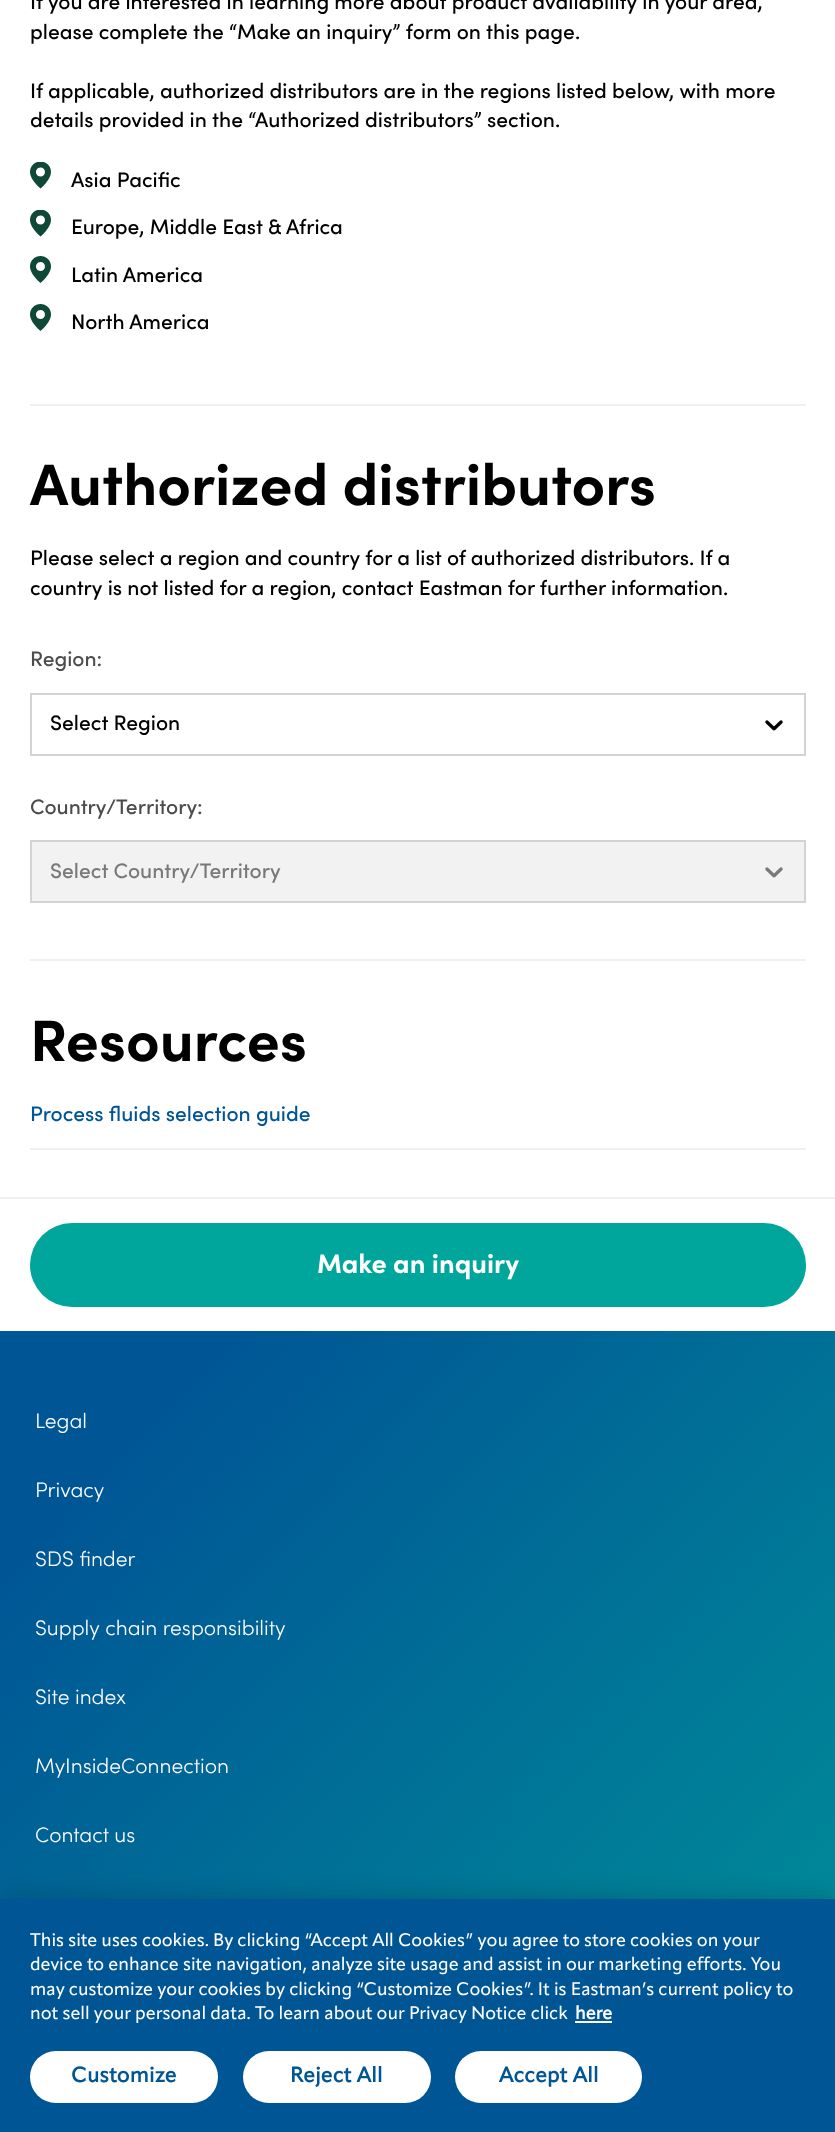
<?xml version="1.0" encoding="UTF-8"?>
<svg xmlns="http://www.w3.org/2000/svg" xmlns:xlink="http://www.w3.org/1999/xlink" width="835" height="2132">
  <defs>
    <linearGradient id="g1" gradientUnits="userSpaceOnUse" x1="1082" y1="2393" x2="-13" y2="1344"><stop offset="0" stop-color="#00a69b" /><stop offset="0.89" stop-color="#005695" /></linearGradient>
  </defs>
  <rect width="100%" height="100%" fill="#ffffff" />
  <rect x="30" y="404" width="776" height="2" fill="#f0f0f1" />
  <image x="30" y="162" width="21" height="27" xlink:href="image1.png" />
  <image x="30" y="210" width="21" height="27" xlink:href="image1.png" />
  <image x="30" y="256" width="21" height="27" xlink:href="image2.png" />
  <image x="30" y="304" width="21" height="27" xlink:href="image2.png" />
  <rect x="30" y="959" width="776" height="2" fill="#f0f0f1" />
  <rect x="31" y="694" width="774" height="61" fill="none" stroke="#d3d3d3" stroke-width="2" />
  <image x="765" y="720" width="18" height="11" xlink:href="image3.png" />
  <rect x="31" y="841" width="774" height="61" fill="#f2f2f2" stroke="#d3d3d3" stroke-width="2" />
  <image x="765" y="867" width="18" height="11" xlink:href="image4.png" />
  <rect x="30" y="1148" width="776" height="2" fill="#f0f0f1" />
  <rect y="1197" width="835" height="2" fill="#f0f0f1" />
  <rect x="30" y="1223" width="776" height="84" rx="42" fill="#00a69b" />
  <rect y="1331" width="835" height="568" fill="url(#g1)" />
  <rect y="1899" width="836" height="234" fill="#000000" fill-opacity="0.2" filter="blur(13.5px)" />
  <rect y="1899" width="835" height="233" fill="#005695" />
  <rect x="575" y="2021" width="37" height="2" fill="#ffffff" />
  <rect x="30" y="2051" width="188" height="52" rx="26" fill="#ffffff" />
  <rect x="243" y="2051" width="188" height="52" rx="26" fill="#ffffff" />
  <rect x="455" y="2051" width="187" height="52" rx="26" fill="#ffffff" />
  <text x="30" y="9" style="font-family: Sofia; font-size: 21px; font-weight: 500; fill: #000000">If you are interested in learning more about product availability in your area,</text>
  <text x="30" y="39" style="font-family: Sofia; font-size: 21px; font-weight: 500; fill: #000000">please complete the “Make an inquiry” form on this page.</text>
  <text x="30" y="98" style="font-family: Sofia; font-size: 21px; font-weight: 500; fill: #000000">If applicable, authorized distributors are in the regions listed below, with more</text>
  <text x="30" y="127" style="font-family: Sofia; font-size: 21px; font-weight: 500; fill: #000000">details provided in the “Authorized distributors” section.</text>
  <text x="71" y="187" style="font-family: Sofia; font-size: 21px; font-weight: 500; fill: #000000">Asia Pacific</text>
  <text x="71" y="234" style="font-family: Sofia; font-size: 21px; font-weight: 500; fill: #000000">Europe, Middle East &amp; Africa</text>
  <text x="71" y="282" style="font-family: Sofia; font-size: 21px; font-weight: 500; fill: #000000">Latin America</text>
  <text x="71" y="329" style="font-family: Sofia; font-size: 21px; font-weight: 500; fill: #000000">North America</text>
  <text x="30" y="505" style="font-family: Sofia; font-size: 58.5px; font-weight: bold; fill: #000000">Authorized distributors</text>
  <text x="30" y="565" style="font-family: Sofia; font-size: 21px; font-weight: 500; fill: #000000">Please select a region and country for a list of authorized distributors. If a</text>
  <text x="30" y="595" style="font-family: Sofia; font-size: 21px; font-weight: 500; fill: #000000">country is not listed for a region, contact Eastman for further information.</text>
  <text x="30" y="666" style="font-family: Sofia; font-size: 21px; font-weight: 500; fill: #4c4c4c">Region:</text>
  <text x="50" y="730" style="font-family: Sofia; font-size: 21px; font-weight: 500; fill: #000000">Select Region</text>
  <text x="30" y="814" style="font-family: Sofia; font-size: 21px; font-weight: 500; fill: #4c4c4c">Country/Territory:</text>
  <text x="50" y="878" style="font-family: Sofia; font-size: 21px; font-weight: 500; fill: #797979">Select Country/Territory</text>
  <text x="30" y="1061" style="font-family: Sofia; font-size: 58.5px; font-weight: bold; fill: #000000">Resources</text>
  <text x="30" y="1121" style="font-family: Sofia; font-size: 21px; font-weight: 500; fill: #005695">Process fluids selection guide</text>
  <text x="317" y="1273" style="font-family: Sofia; font-size: 27px; font-weight: bold; fill: #ffffff">Make an inquiry</text>
  <text x="35" y="1428" style="font-family: Sofia; font-size: 21px; font-weight: 300; fill: #ffffff">Legal</text>
  <text x="35" y="1497" style="font-family: Sofia; font-size: 21px; font-weight: 300; fill: #ffffff">Privacy</text>
  <text x="35" y="1566" style="font-family: Sofia; font-size: 21px; font-weight: 300; fill: #ffffff">SDS finder</text>
  <text x="35" y="1635" style="font-family: Sofia; font-size: 21px; font-weight: 300; fill: #ffffff">Supply chain responsibility</text>
  <text x="35" y="1704" style="font-family: Sofia; font-size: 21px; font-weight: 300; fill: #ffffff">Site index</text>
  <text x="35" y="1773" style="font-family: Sofia; font-size: 21px; font-weight: 300; fill: #ffffff">MyInsideConnection</text>
  <text x="35" y="1842" style="font-family: Sofia; font-size: 21px; font-weight: 300; fill: #ffffff">Contact us</text>
  <text x="30" y="1946" style="font-family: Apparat; font-size: 18px; font-weight: 500; fill: #ffffff">This site uses cookies. By clicking “Accept All Cookies” you agree to store cookies on your</text>
  <text x="30" y="1970" style="font-family: Apparat; font-size: 18px; font-weight: 500; fill: #ffffff">device to enhance site navigation, analyze site usage and assist in our marketing efforts. You</text>
  <text x="30" y="1995" style="font-family: Apparat; font-size: 18px; font-weight: 500; fill: #ffffff">may customize your cookies by clicking “Customize Cookies”. It is Eastman’s current policy to</text>
  <text x="30" y="2019" style="font-family: Apparat; font-size: 18px; font-weight: 500; fill: #ffffff">not sell your personal data. To learn about our Privacy Notice click</text>
  <text x="575" y="2019" style="font-family: Apparat; font-size: 18px; font-weight: bold; fill: #ffffff">here</text>
  <text x="71" y="2082" style="font-family: Apparat; font-size: 21px; font-weight: bold; letter-spacing: 0.25px; fill: #005695">Customize</text>
  <text x="290" y="2082" style="font-family: Apparat; font-size: 21px; font-weight: bold; letter-spacing: 0.25px; fill: #005695">Reject All</text>
  <text x="499" y="2082" style="font-family: Apparat; font-size: 21px; font-weight: bold; letter-spacing: 0.25px; fill: #005695">Accept All</text>
</svg>
